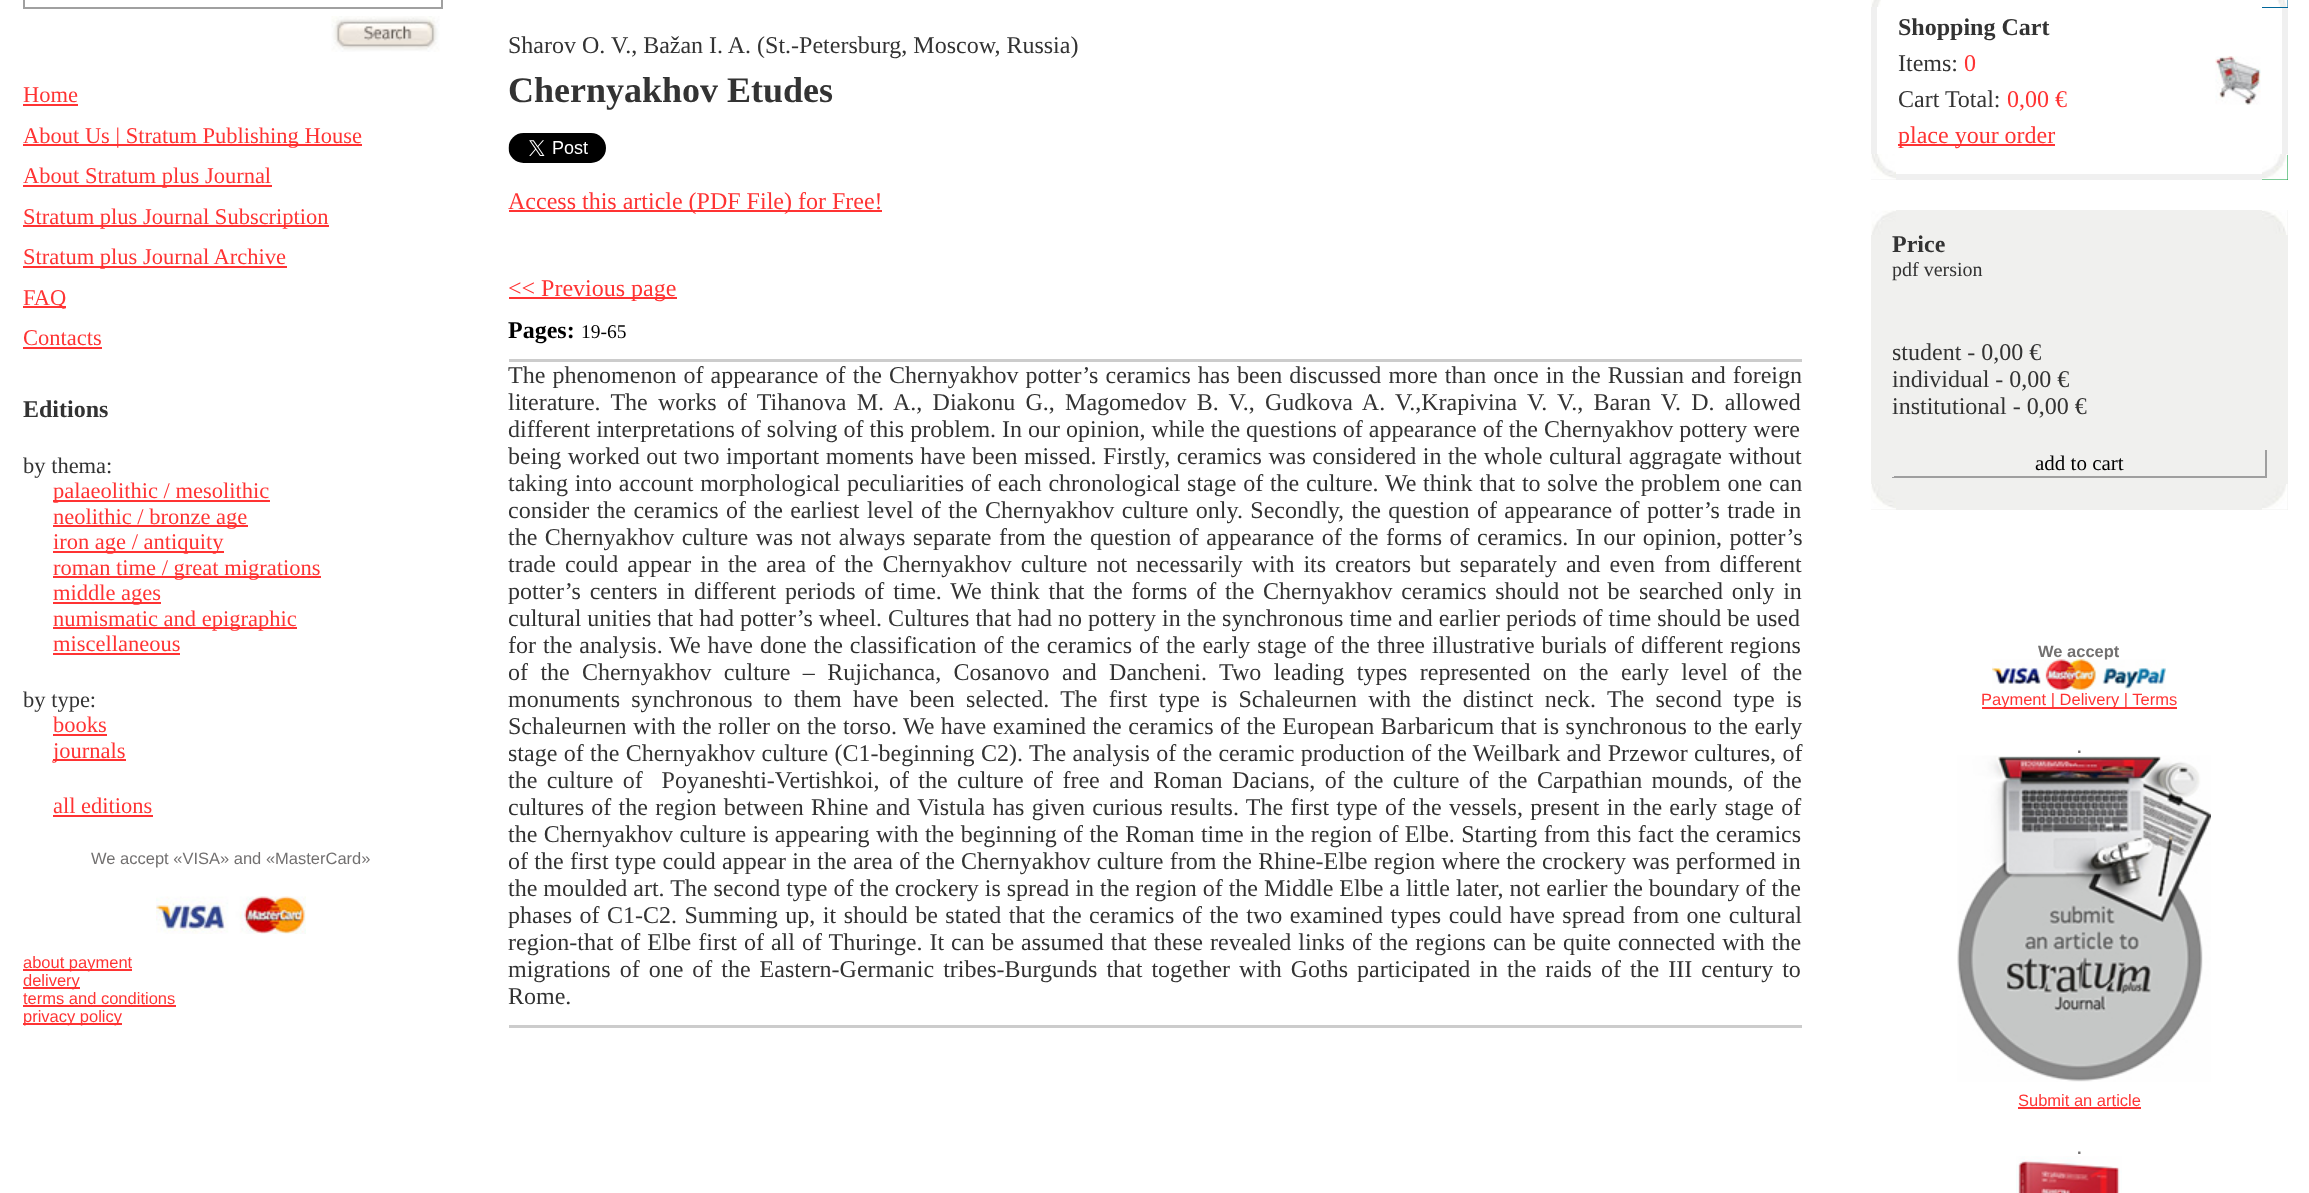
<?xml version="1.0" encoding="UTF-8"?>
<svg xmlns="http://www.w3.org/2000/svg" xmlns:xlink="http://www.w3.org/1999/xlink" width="2309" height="1193">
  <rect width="100%" height="100%" fill="#ffffff" />
  <rect x="24" y="-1" width="418" height="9" fill="none" stroke="#a0a0a0" stroke-width="2" />
  <image x="331" y="16" width="109" height="36" xlink:href="image1.png" />
  <rect x="23" y="104" width="55" height="2" fill="#ff3333" />
  <rect x="23" y="144" width="339" height="2" fill="#ff3333" />
  <rect x="23" y="185" width="249" height="2" fill="#ff3333" />
  <rect x="23" y="225" width="306" height="2" fill="#ff3333" />
  <rect x="23" y="266" width="264" height="2" fill="#ff3333" />
  <rect x="23" y="306" width="43" height="2" fill="#ff3333" />
  <rect x="23" y="347" width="79" height="2" fill="#ff3333" />
  <rect x="53" y="500" width="217" height="2" fill="#ff3333" />
  <rect x="53" y="525" width="195" height="2" fill="#ff3333" />
  <rect x="53" y="551" width="171" height="2" fill="#ff3333" />
  <rect x="53" y="576" width="268" height="2" fill="#ff3333" />
  <rect x="53" y="602" width="108" height="2" fill="#ff3333" />
  <rect x="53" y="627" width="244" height="2" fill="#ff3333" />
  <rect x="53" y="653" width="127" height="2" fill="#ff3333" />
  <rect x="53" y="734" width="54" height="2" fill="#ff3333" />
  <rect x="53" y="759" width="73" height="2" fill="#ff3333" />
  <rect x="53" y="815" width="100" height="2" fill="#ff3333" />
  <image x="156" y="896" width="150" height="38" xlink:href="image2.png" />
  <rect x="23" y="969" width="109" height="2" fill="#ff3333" />
  <rect x="23" y="987" width="57" height="2" fill="#ff3333" />
  <rect x="23" y="1005" width="153" height="2" fill="#ff3333" />
  <rect x="23" y="1023" width="99" height="2" fill="#ff3333" />
  <image x="508" y="133" width="98" height="30" xlink:href="image3.png" />
  <rect x="509" y="210" width="373" height="2" fill="#ff3333" />
  <rect x="509" y="297" width="168" height="2" fill="#ff3333" />
  <rect x="509" y="359" width="1293" height="3" fill="#cccccc" />
  <rect x="509" y="1025" width="1293" height="3" fill="#cccccc" />
  <rect x="1874" y="-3" width="411" height="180" fill="none" stroke="#f0f0f0" stroke-width="6" />
  <image x="1871" y="0" width="10" height="7" xlink:href="image4.png" />
  <rect x="2262" width="26" height="8" fill="#006699" />
  <image x="2262" y="0" width="26" height="7" xlink:href="image5.png" />
  <image x="2215" y="56" width="46" height="49" xlink:href="image6.png" />
  <rect x="1898" y="144" width="157" height="2" fill="#ff3333" />
  <image x="1871" y="154" width="25" height="26" xlink:href="image7.png" />
  <rect x="2262" y="155" width="26" height="25" fill="#009933" />
  <image x="2262" y="154" width="26" height="26" xlink:href="image8.png" />
  <rect x="1871" y="210" width="417" height="300" fill="#f0f0ee" />
  <image x="1871" y="210" width="25" height="25" xlink:href="image9.png" />
  <image x="2262" y="210" width="26" height="25" xlink:href="image10.png" />
  <rect x="2265" y="450" width="2" height="27" fill="#9f9f9f" />
  <rect x="1892" y="476" width="375" height="2" fill="#9f9f9f" />
  <rect x="1892" y="476" width="2" height="1" fill="#eeeeee" />
  <image x="1871" y="484" width="25" height="26" xlink:href="image11.png" />
  <image x="2262" y="484" width="26" height="26" xlink:href="image12.png" />
  <rect x="1982" y="707" width="195" height="2" fill="#ff3333" />
  <image x="1957" y="755" width="254" height="327" xlink:href="image14.png" />
  <rect x="2018" y="1107" width="123" height="2" fill="#ff3333" />
  <image x="2016" y="1156" width="106" height="37" xlink:href="image15.png" />
  <text x="23" y="102" style="font-family: Liberation Serif; font-size: 22.5px; fill: #ff3333">Home</text>
  <text x="23" y="143" style="font-family: Liberation Serif; font-size: 22.5px; fill: #ff3333">About Us | Stratum Publishing House</text>
  <text x="23" y="183" style="font-family: Liberation Serif; font-size: 22.5px; fill: #ff3333">About Stratum plus Journal</text>
  <text x="23" y="224" style="font-family: Liberation Serif; font-size: 22.5px; fill: #ff3333">Stratum plus Journal Subscription</text>
  <text x="23" y="264" style="font-family: Liberation Serif; font-size: 22.5px; fill: #ff3333">Stratum plus Journal Archive</text>
  <text x="23" y="305" style="font-family: Liberation Serif; font-size: 22.5px; fill: #ff3333">FAQ</text>
  <text x="23" y="345" style="font-family: Liberation Serif; font-size: 22.5px; fill: #ff3333">Contacts</text>
  <text x="23" y="417" style="font-family: Liberation Serif; font-size: 24px; font-weight: bold; fill: #333333">Editions</text>
  <text x="23" y="473" style="font-family: Liberation Serif; font-size: 22.5px; fill: #333333">by thema:</text>
  <text x="53" y="498" style="font-family: Liberation Serif; font-size: 22.5px; fill: #ff3333">palaeolithic / mesolithic</text>
  <text x="53" y="524" style="font-family: Liberation Serif; font-size: 22.5px; fill: #ff3333">neolithic / bronze age</text>
  <text x="53" y="549" style="font-family: Liberation Serif; font-size: 22.5px; fill: #ff3333">iron age / antiquity</text>
  <text x="53" y="575" style="font-family: Liberation Serif; font-size: 22.5px; fill: #ff3333">roman time / great migrations</text>
  <text x="53" y="600" style="font-family: Liberation Serif; font-size: 22.5px; fill: #ff3333">middle ages</text>
  <text x="53" y="626" style="font-family: Liberation Serif; font-size: 22.5px; fill: #ff3333">numismatic and epigraphic</text>
  <text x="53" y="651" style="font-family: Liberation Serif; font-size: 22.5px; fill: #ff3333">miscellaneous</text>
  <text x="23" y="707" style="font-family: Liberation Serif; font-size: 22.5px; fill: #333333">by type:</text>
  <text x="53" y="732" style="font-family: Liberation Serif; font-size: 22.5px; fill: #ff3333">books</text>
  <text x="53" y="758" style="font-family: Liberation Serif; font-size: 22.5px; fill: #ff3333">journals</text>
  <text x="53" y="813" style="font-family: Liberation Serif; font-size: 22.5px; fill: #ff3333">all editions</text>
  <text x="91" y="864" style="font-family: Liberation Sans; font-size: 16.5px; fill: #727070">We accept «VISA» and «MasterCard»</text>
  <text x="23" y="968" style="font-family: Liberation Sans; font-size: 16.5px; fill: #ff3333">about payment</text>
  <text x="23" y="986" style="font-family: Liberation Sans; font-size: 16.5px; fill: #ff3333">delivery</text>
  <text x="23" y="1004" style="font-family: Liberation Sans; font-size: 16.5px; fill: #ff3333">terms and conditions</text>
  <text x="23" y="1022" style="font-family: Liberation Sans; font-size: 16.5px; fill: #ff3333">privacy policy</text>
  <text x="508" y="53" style="font-family: Liberation Serif; font-size: 24px; fill: #333333">Sharov O. V., Bažan I. A. (St.-Petersburg, Moscow, Russia)</text>
  <text x="508" y="102" style="font-family: Liberation Serif; font-size: 36px; font-weight: bold; fill: #333333">Chernyakhov Etudes</text>
  <text x="508" y="209" style="font-family: Liberation Serif; font-size: 24px; fill: #ff3333">Access this article (PDF File) for Free!</text>
  <text x="508" y="296" style="font-family: Liberation Serif; font-size: 24px; fill: #ff3333">&lt;&lt; Previous page</text>
  <text x="508" y="338" style="font-family: Liberation Serif; font-size: 24px; font-weight: bold; fill: #000000">Pages:</text>
  <text x="581" y="338" style="font-family: Liberation Serif; font-size: 19.5px; fill: #000000">19-65</text>
  <text x="508" y="383" word-spacing="1.1" style="font-family: Liberation Serif; font-size: 24px; fill: #333333">The phenomenon of appearance of the Chernyakhov potter’s ceramics has been discussed more than once in the Russian and foreign</text>
  <text x="508" y="410" word-spacing="4.25" style="font-family: Liberation Serif; font-size: 24px; fill: #333333">literature. The works of Tihanova M. A., Diakonu G., Magomedov B. V., Gudkova A. V.,Krapivina V. V., Baran V. D. allowed</text>
  <text x="508" y="437" style="font-family: Liberation Serif; font-size: 24px; fill: #333333">different interpretations of solving of this problem. In our opinion, while the questions of appearance of the Chernyakhov pottery were</text>
  <text x="508" y="464" word-spacing="0.5" style="font-family: Liberation Serif; font-size: 24px; fill: #333333">being worked out two important moments have been missed. Firstly, ceramics was considered in the whole cultural aggragate without</text>
  <text x="508" y="491" word-spacing="0.75" style="font-family: Liberation Serif; font-size: 24px; fill: #333333">taking into account morphological peculiarities of each chronological stage of the culture. We think that to solve the problem one can</text>
  <text x="508" y="518" word-spacing="1.4" style="font-family: Liberation Serif; font-size: 24px; fill: #333333">consider the ceramics of the earliest level of the Chernyakhov culture only. Secondly, the question of appearance of potter’s trade in</text>
  <text x="508" y="545" word-spacing="1.5" style="font-family: Liberation Serif; font-size: 24px; fill: #333333">the Chernyakhov culture was not always separate from the question of appearance of the forms of ceramics. In our opinion, potter’s</text>
  <text x="508" y="572" word-spacing="3" style="font-family: Liberation Serif; font-size: 24px; fill: #333333">trade could appear in the area of the Chernyakhov culture not necessarily with its creators but separately and even from different</text>
  <text x="508" y="599" word-spacing="2.8" style="font-family: Liberation Serif; font-size: 24px; fill: #333333">potter’s centers in different periods of time. We think that the forms of the Chernyakhov ceramics should not be searched only in</text>
  <text x="508" y="626" style="font-family: Liberation Serif; font-size: 24px; fill: #333333">cultural unities that had potter’s wheel. Cultures that had no pottery in the synchronous time and earlier periods of time should be used</text>
  <text x="508" y="653" word-spacing="1" style="font-family: Liberation Serif; font-size: 24px; fill: #333333">for the analysis. We have done the classification of the ceramics of the early stage of the three illustrative burials of different regions</text>
  <text x="508" y="680" word-spacing="6.4" style="font-family: Liberation Serif; font-size: 24px; fill: #333333">of the Chernyakhov culture – Rujichanca, Cosanovo and Dancheni. Two leading types represented on the early level of the</text>
  <text x="508" y="707" word-spacing="5.25" style="font-family: Liberation Serif; font-size: 24px; fill: #333333">monuments synchronous to them have been selected. The first type is Schaleurnen with the distinct neck. The second type is</text>
  <text x="508" y="734" word-spacing="0.5" style="font-family: Liberation Serif; font-size: 24px; fill: #333333">Schaleurnen with the roller on the torso. We have examined the ceramics of the European Barbaricum that is synchronous to the early</text>
  <text x="508" y="761" word-spacing="0.4" style="font-family: Liberation Serif; font-size: 24px; fill: #333333">stage of the Chernyakhov culture (C1-beginning C2). The analysis of the ceramic production of the Weilbark and Przewor cultures, of</text>
  <text x="508" y="788" word-spacing="3.4" style="font-family: Liberation Serif; font-size: 24px; fill: #333333" xml:space="preserve">the culture of  Poyaneshti-Vertishkoi, of the culture of free and Roman Dacians, of the culture of the Carpathian mounds, of the</text>
  <text x="508" y="815" word-spacing="1.3" style="font-family: Liberation Serif; font-size: 24px; fill: #333333">cultures of the region between Rhine and Vistula has given curious results. The first type of the vessels, present in the early stage of</text>
  <text x="508" y="842" word-spacing="0.4" style="font-family: Liberation Serif; font-size: 24px; fill: #333333">the Chernyakhov culture is appearing with the beginning of the Roman time in the region of Elbe. Starting from this fact the ceramics</text>
  <text x="508" y="869" word-spacing="0.3" style="font-family: Liberation Serif; font-size: 24px; fill: #333333">of the first type could appear in the area of the Chernyakhov culture from the Rhine-Elbe region where the crockery was performed in</text>
  <text x="508" y="896" style="font-family: Liberation Serif; font-size: 24px; fill: #333333">the moulded art. The second type of the crockery is spread in the region of the Middle Elbe a little later, not earlier the boundary of the</text>
  <text x="508" y="923" word-spacing="1.5" style="font-family: Liberation Serif; font-size: 24px; fill: #333333">phases of C1-C2. Summing up, it should be stated that the ceramics of the two examined types could have spread from one cultural</text>
  <text x="508" y="950" word-spacing="1" style="font-family: Liberation Serif; font-size: 24px; fill: #333333">region-that of Elbe first of all of Thuringe. It can be assumed that these revealed links of the regions can be quite connected with the</text>
  <text x="508" y="977" word-spacing="3" style="font-family: Liberation Serif; font-size: 24px; fill: #333333">migrations of one of the Eastern-Germanic tribes-Burgunds that together with Goths participated in the raids of the III century to</text>
  <text x="508" y="1004" style="font-family: Liberation Serif; font-size: 24px; fill: #333333">Rome.</text>
  <text x="1898" y="35" style="font-family: Liberation Serif; font-size: 24px; font-weight: bold; fill: #333333">Shopping Cart</text>
  <text x="1898" y="71" style="font-family: Liberation Serif; font-size: 24px; fill: #333333">Items:</text>
  <text x="1964" y="71" style="font-family: Liberation Serif; font-size: 24px; fill: #ff3333">0</text>
  <text x="1898" y="107" style="font-family: Liberation Serif; font-size: 24px; fill: #333333">Cart Total:</text>
  <text x="2007" y="107" style="font-family: Liberation Serif; font-size: 24px; fill: #ff3333">0,00 €</text>
  <text x="1898" y="143" style="font-family: Liberation Serif; font-size: 24px; fill: #ff3333">place your order</text>
  <text x="1892" y="252" style="font-family: Liberation Serif; font-size: 24px; font-weight: bold; fill: #333333">Price</text>
  <text x="1892" y="276" style="font-family: Liberation Serif; font-size: 20px; fill: #333333">pdf version</text>
  <text x="1892" y="360" style="font-family: Liberation Serif; font-size: 24px; fill: #333333">student - 0,00 €</text>
  <text x="1892" y="387" style="font-family: Liberation Serif; font-size: 24px; fill: #333333">individual - 0,00 €</text>
  <text x="1892" y="414" style="font-family: Liberation Serif; font-size: 24px; fill: #333333">institutional - 0,00 €</text>
  <text x="2035" y="470" style="font-family: Liberation Serif; font-size: 21px; fill: #000000">add to cart</text>
  <text x="2038" y="657" style="font-family: Liberation Sans; font-size: 16.5px; font-weight: bold; fill: #727070">We accept</text>
  <image x="1992" y="659" width="174" height="31" xlink:href="image13.png" />
  <text x="1981" y="705" style="font-family: Liberation Sans; font-size: 16.5px; fill: #ff3333">Payment | Delivery | Terms</text>
  <text x="2077" y="753" style="font-family: Liberation Sans; font-size: 16.5px; font-weight: bold; fill: #727070">.</text>
  <text x="2018" y="1106" style="font-family: Liberation Sans; font-size: 16.5px; fill: #ff3333">Submit an article</text>
  <text x="2077" y="1154" style="font-family: Liberation Sans; font-size: 16.5px; font-weight: bold; fill: #727070">.</text>
</svg>
